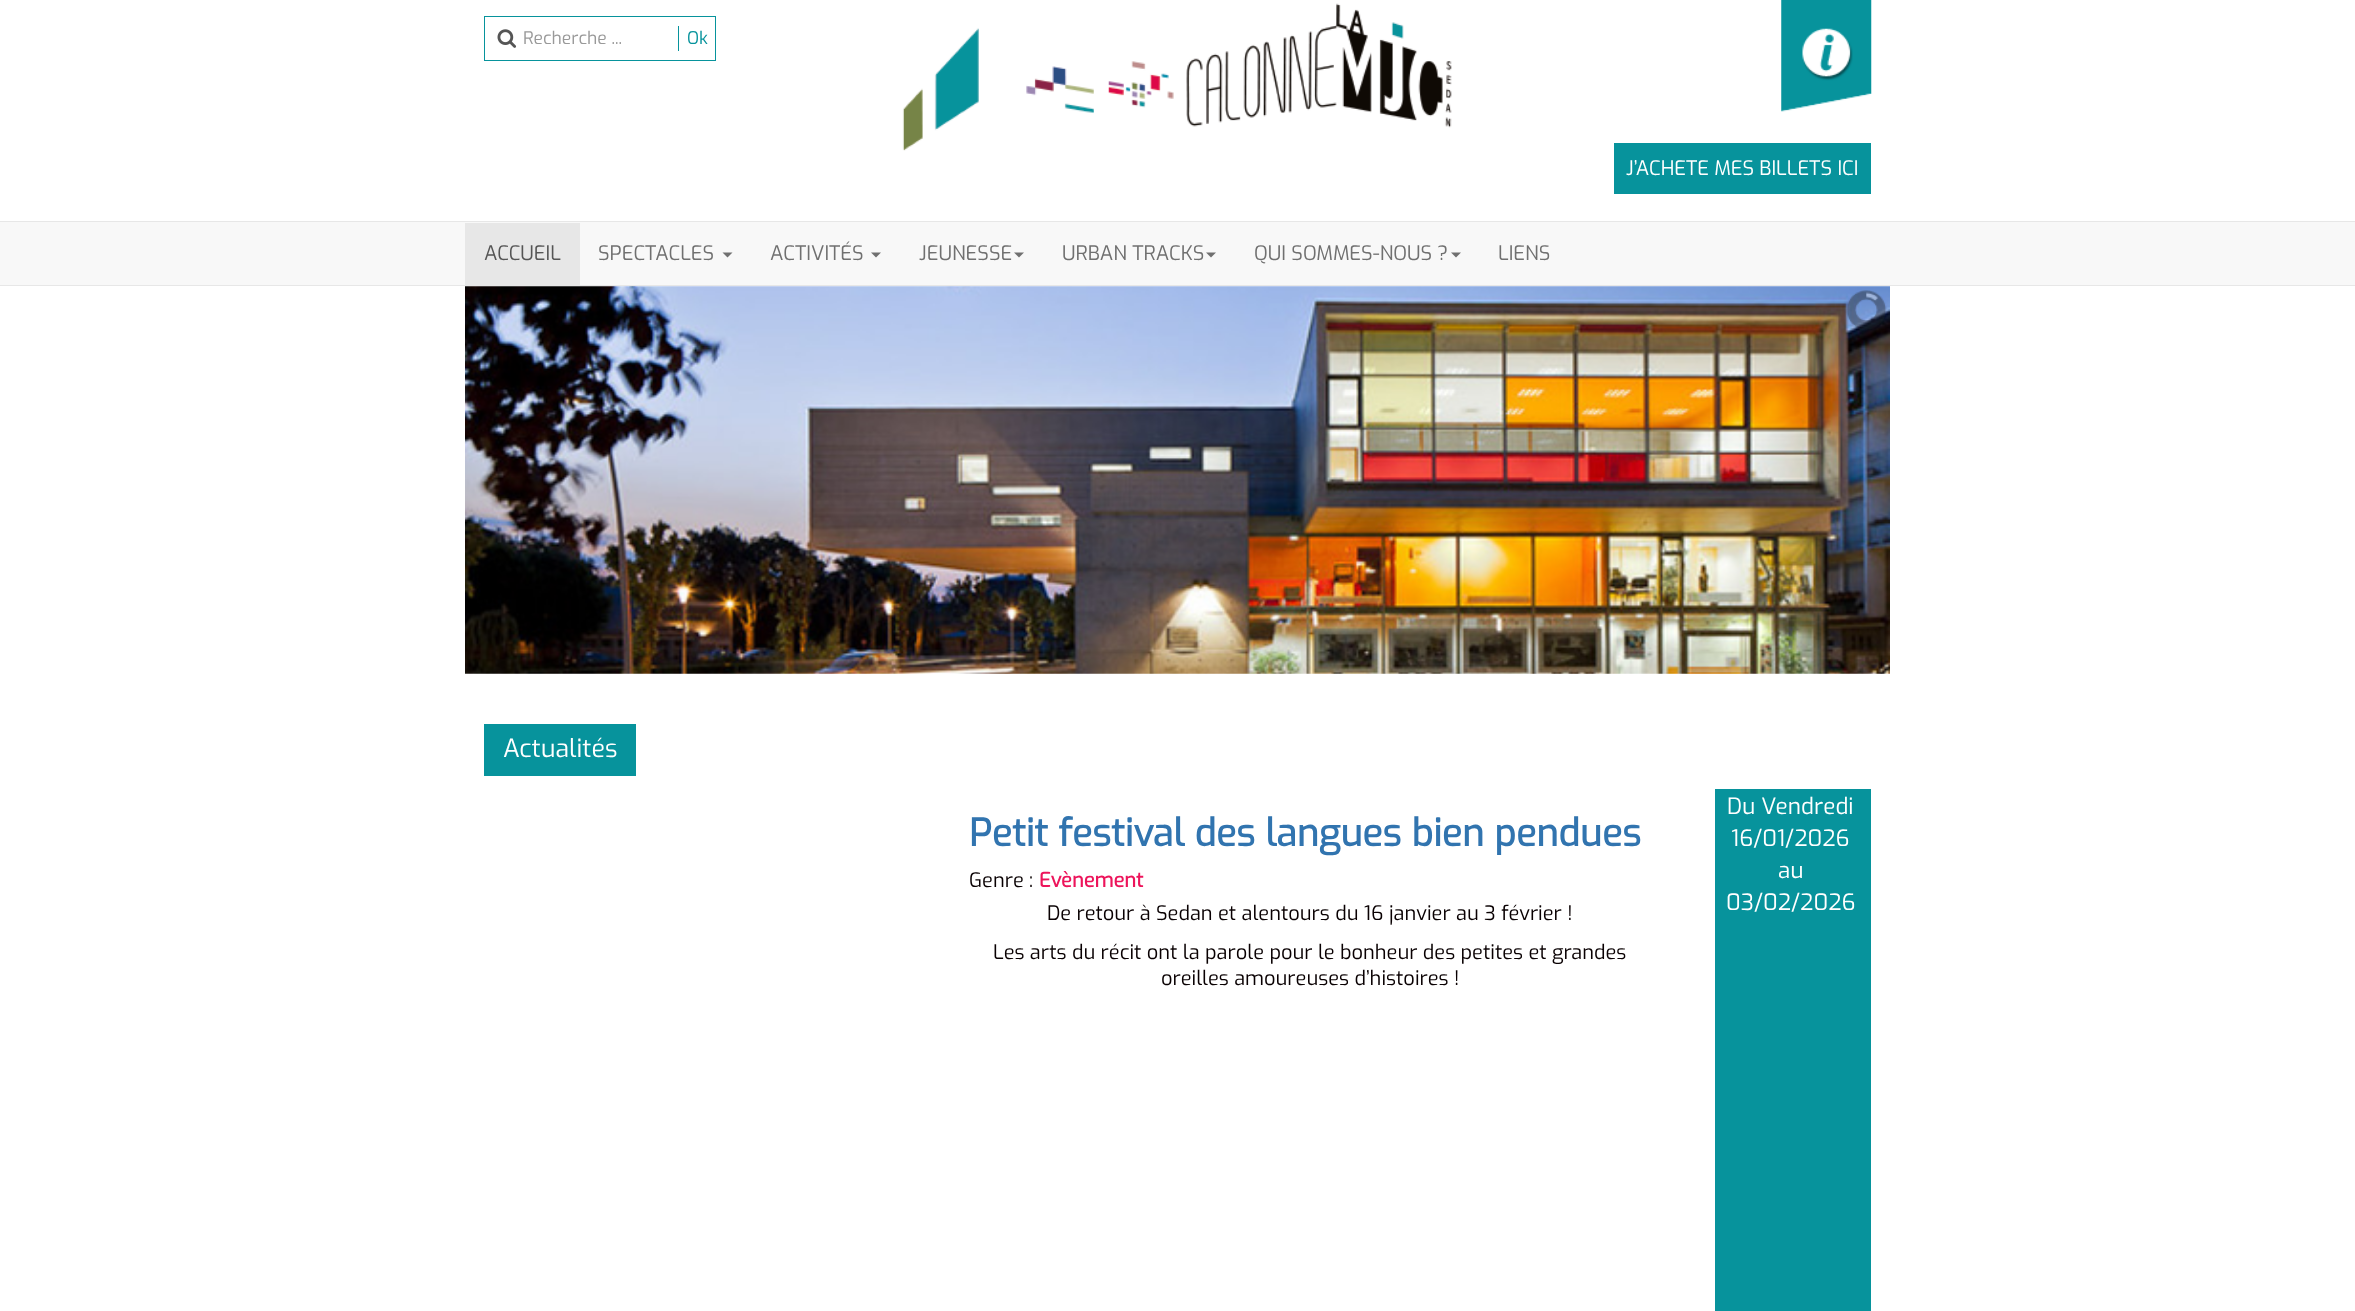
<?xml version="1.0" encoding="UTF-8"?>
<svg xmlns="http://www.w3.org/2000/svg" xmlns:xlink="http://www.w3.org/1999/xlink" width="2355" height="1311">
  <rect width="100%" height="100%" fill="#ffffff" />
  <rect x="484.5" y="16.5" width="231" height="44" fill="none" stroke="#07939c" />
  <image x="497" y="29" width="20" height="19" xlink:href="image1.png" />
  <rect x="678" y="26" width="1" height="25" fill="#07939c" />
  <image x="902" y="3" width="550" height="148" xlink:href="image2.png" />
  <image x="1781" y="0" width="91" height="112" xlink:href="image3.png" />
  <rect x="1614" y="143" width="257" height="51" fill="#07939c" />
  <rect y="222" width="2355" height="63" fill="#f8f8f8" />
  <rect y="221" width="2355" height="1" fill="#e7e7e7" />
  <rect y="285" width="2355" height="1" fill="#e7e7e7" />
  <rect x="465" y="223" width="115" height="62" fill="#e7e7e7" />
  <path d="M 722.5 252.5 h 10 l -5 5 z" fill="#707070" />
  <path d="M 871 252.5 h 10 l -5 5 z" fill="#707070" />
  <path d="M 1014 252.5 h 10 l -5 5 z" fill="#707070" />
  <path d="M 1206 252.5 h 10 l -5 5 z" fill="#707070" />
  <path d="M 1451 252.5 h 10 l -5 5 z" fill="#707070" />
  <image x="465" y="286" width="1425" height="388" xlink:href="image4.png" />
  <image x="1846" y="290" width="41" height="40" xlink:href="image5.png" />
  <rect x="484" y="724" width="152" height="52" fill="#07939c" />
  <rect x="1715" y="789" width="156" height="522" fill="#07939c" />
  <text x="523" y="44" style="font-family: Exo; font-size: 17.5px; fill: #999999">Recherche ...</text>
  <text x="687" y="44" style="font-family: Exo; font-size: 17.5px; fill: #07939c">Ok</text>
  <text x="1626" y="175" style="font-family: Exo; font-size: 20px; fill: #ffffff">J’ACHETE MES BILLETS ICI</text>
  <text x="484" y="260" style="font-family: Exo; font-size: 20px; fill: #555555">ACCUEIL</text>
  <text x="598" y="260" style="font-family: Exo; font-size: 20px; fill: #707070">SPECTACLES</text>
  <text x="770" y="260" style="font-family: Exo; font-size: 20px; fill: #707070">ACTIVITÉS</text>
  <text x="919" y="260" style="font-family: Exo; font-size: 20px; fill: #707070">JEUNESSE</text>
  <text x="1062" y="260" style="font-family: Exo; font-size: 20px; fill: #707070">URBAN TRACKS</text>
  <text x="1254" y="260" style="font-family: Exo; font-size: 20px; fill: #707070">QUI SOMMES-NOUS ?</text>
  <text x="1498" y="260" style="font-family: Exo; font-size: 20px; fill: #707070">LIENS</text>
  <text x="503" y="757" style="font-family: Exo; font-size: 25px; fill: #ffffff">Actualités</text>
  <text x="969" y="846" style="font-family: Exo; font-size: 37.5px; font-weight: bold; fill: #3174af">Petit festival des langues bien pendues</text>
  <text x="969" y="887" style="font-family: Exo; font-size: 20px; fill: #090002">Genre :</text>
  <text x="1039" y="887" style="font-family: Exo; font-size: 20px; font-weight: bold; fill: #ed145b">Evènement</text>
  <text x="1047" y="920" style="font-family: Exo; font-size: 20px; fill: #090002">De retour à Sedan et alentours du 16 janvier au 3 février !</text>
  <text x="993" y="959" style="font-family: Exo; font-size: 20px; fill: #090002">Les arts du récit ont la parole pour le bonheur des petites et grandes</text>
  <text x="1161" y="985" style="font-family: Exo; font-size: 20px; fill: #090002">oreilles amoureuses d’histoires !</text>
  <text x="1727" y="814" style="font-family: Exo; font-size: 22.5px; fill: #ffffff">Du Vendredi</text>
  <text x="1731" y="846" style="font-family: Exo; font-size: 22.5px; fill: #ffffff">16/01/2026</text>
  <text x="1778" y="878" style="font-family: Exo; font-size: 22.5px; fill: #ffffff">au</text>
  <text x="1726" y="910" style="font-family: Exo; font-size: 22.5px; fill: #ffffff">03/02/2026</text>
</svg>
